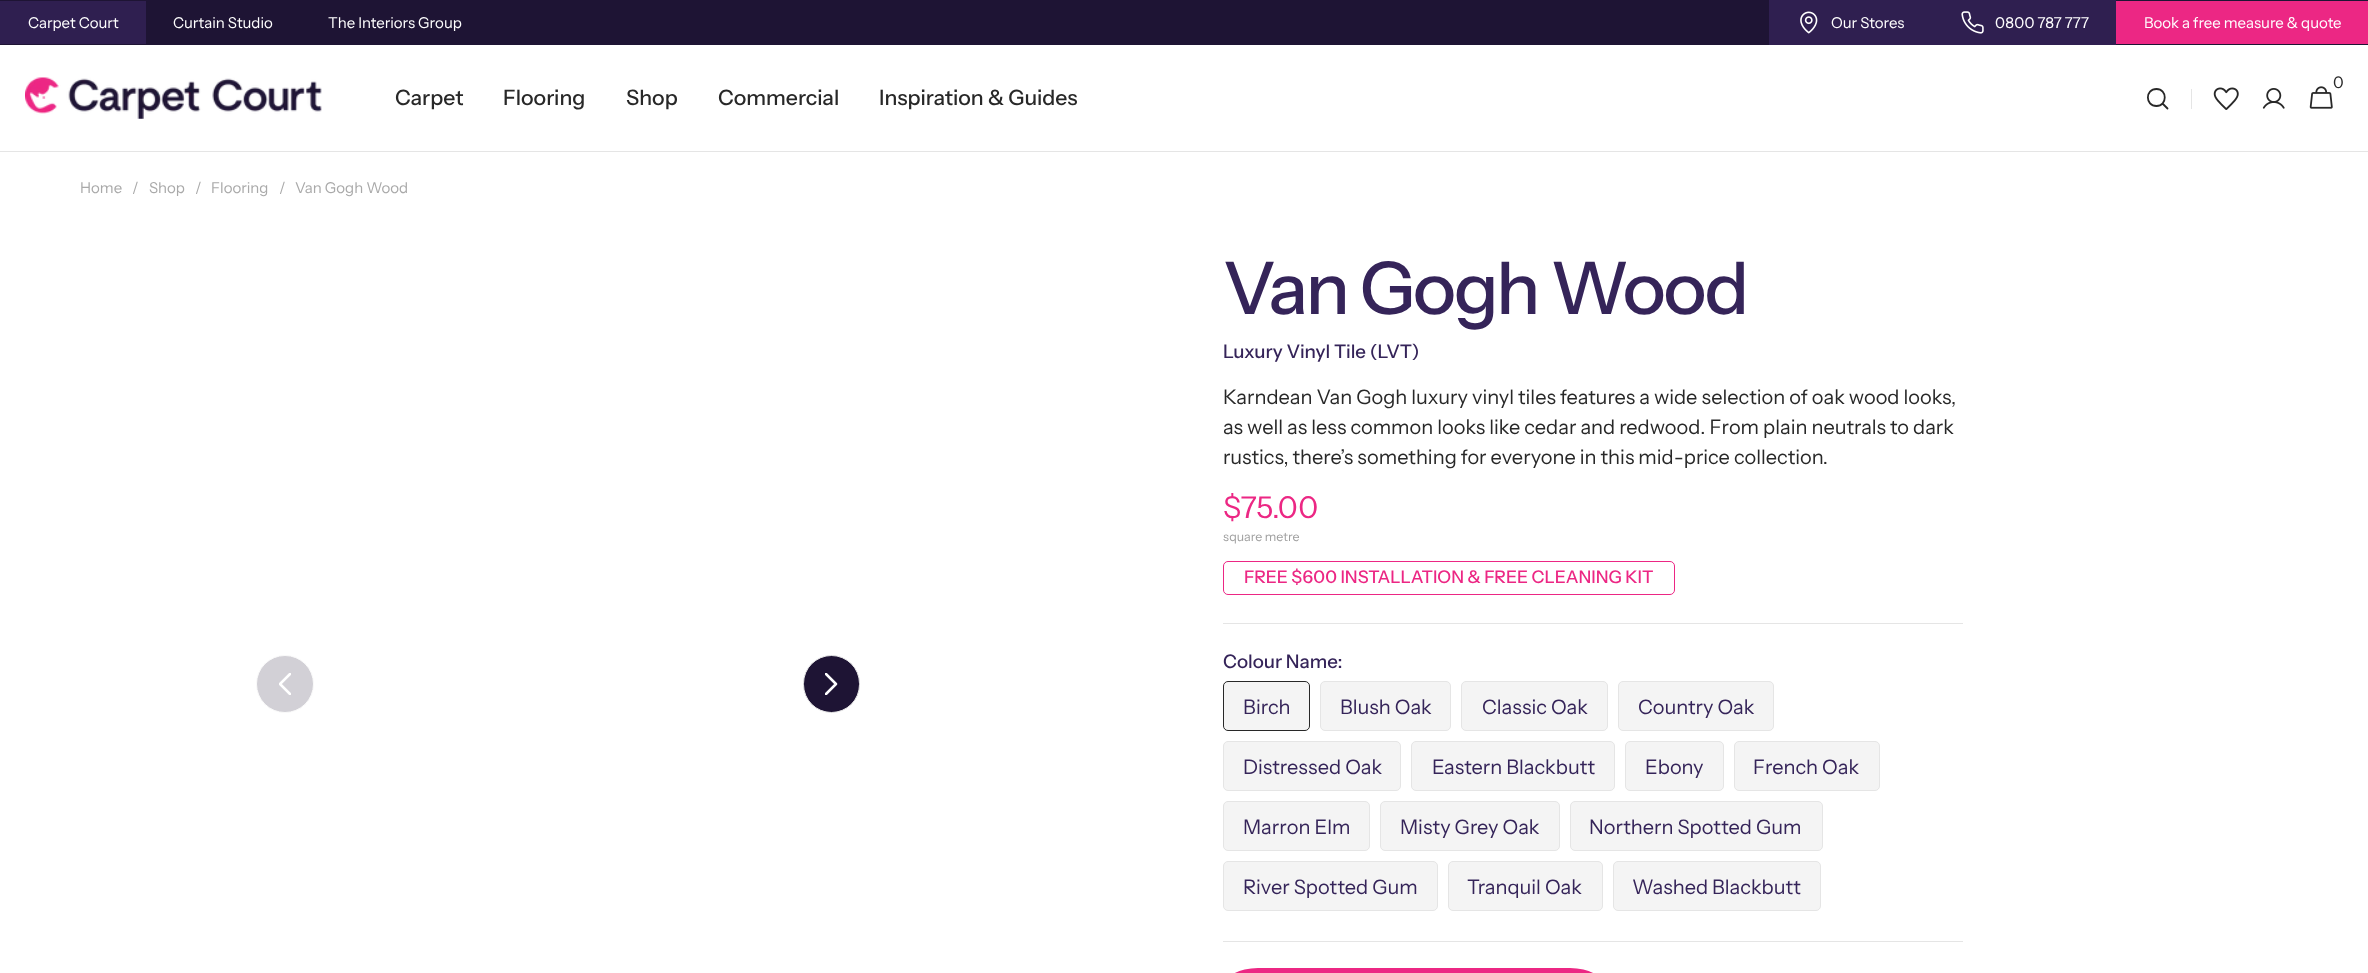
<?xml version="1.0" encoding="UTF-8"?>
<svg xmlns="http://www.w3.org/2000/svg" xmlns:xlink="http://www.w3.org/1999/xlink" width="2368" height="973">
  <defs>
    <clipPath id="clip1"><rect x="279" y="673" width="12" height="22" /></clipPath>
    <clipPath id="clip2"><rect x="825" y="673" width="13" height="22" /></clipPath>
  </defs>
  <rect width="100%" height="100%" fill="#ffffff" />
  <rect width="2368" height="45" fill="#1e1434" />
  <rect y="1" width="146" height="43" fill="#2f1f50" />
  <rect x="1769" width="347" height="45" fill="#2f1f50" />
  <image x="1800" y="11" width="18" height="23" xlink:href="image1.png" />
  <image x="1961" y="11" width="23" height="23" xlink:href="image2.png" />
  <rect x="2116" y="1" width="252" height="43" fill="#ec2784" />
  <image x="25" y="77" width="297" height="42" xlink:href="image3.png" />
  <image x="2309" y="86" width="24" height="23" xlink:href="image4.png" />
  <image x="2213" y="87" width="26" height="23" xlink:href="image5.png" />
  <image x="2262" y="88" width="23" height="21" xlink:href="image6.png" />
  <path d="M 2156.5 106 c 11 0 11 -17 0 -17 c -11.5 0 -11.5 17 0 17 z m 6 -2.5 l 5 5" fill="none" stroke="#282828" stroke-width="1.8" stroke-linecap="round" stroke-linejoin="round" />
  <rect x="2191" y="89" width="1" height="20" fill="#e5e5e5" />
  <rect y="151" width="2368" height="1" fill="#e5e5e5" />
  <circle cx="285" cy="684" r="28.5" fill="#d2d0d6" stroke="#fafafa" />
  <g clip-path="url(#clip1)">
    <path d="M 290 694 l -10 -10 l 10 -10" fill="none" stroke="#ffffff" stroke-width="2.5" stroke-linecap="round" stroke-linejoin="round" />
  </g>
  <rect x="803.5" y="655.5" width="56" height="57" rx="28" fill="#1e1434" stroke="#e5e5e5" />
  <g clip-path="url(#clip2)">
    <path d="M 826 674 l 10 10 l -10 10" fill="none" stroke="#ffffff" stroke-width="2.5" stroke-linecap="round" stroke-linejoin="round" />
  </g>
  <rect x="1223.5" y="561.5" width="451" height="33" rx="4.5" fill="none" stroke="#ec2784" />
  <rect x="1223" y="623" width="740" height="1" fill="#e5e5e5" />
  <rect x="1223.5" y="681.5" width="86" height="49" rx="4.5" fill="#f4f4f4" stroke="#282828" />
  <rect x="1320.5" y="681.5" width="130" height="49" rx="4.5" fill="#f4f4f4" stroke="#e5e5e5" />
  <rect x="1461.5" y="681.5" width="146" height="49" rx="4.5" fill="#f4f4f4" stroke="#e5e5e5" />
  <rect x="1618.5" y="681.5" width="155" height="49" rx="4.5" fill="#f4f4f4" stroke="#e5e5e5" />
  <rect x="1223.5" y="741.5" width="177" height="49" rx="4.5" fill="#f4f4f4" stroke="#e5e5e5" />
  <rect x="1411.5" y="741.5" width="203" height="49" rx="4.5" fill="#f4f4f4" stroke="#e5e5e5" />
  <rect x="1625.5" y="741.5" width="98" height="49" rx="4.5" fill="#f4f4f4" stroke="#e5e5e5" />
  <rect x="1734.5" y="741.5" width="145" height="49" rx="4.5" fill="#f4f4f4" stroke="#e5e5e5" />
  <rect x="1223.5" y="801.5" width="146" height="49" rx="4.5" fill="#f4f4f4" stroke="#e5e5e5" />
  <rect x="1380.5" y="801.5" width="179" height="49" rx="4.5" fill="#f4f4f4" stroke="#e5e5e5" />
  <rect x="1570.5" y="801.5" width="252" height="49" rx="4.5" fill="#f4f4f4" stroke="#e5e5e5" />
  <rect x="1223.5" y="861.5" width="214" height="49" rx="4.5" fill="#f4f4f4" stroke="#e5e5e5" />
  <rect x="1448.5" y="861.5" width="154" height="49" rx="4.5" fill="#f4f4f4" stroke="#e5e5e5" />
  <rect x="1613.5" y="861.5" width="207" height="49" rx="4.5" fill="#f4f4f4" stroke="#e5e5e5" />
  <rect x="1223" y="941" width="740" height="1" fill="#e5e5e5" />
  <rect x="1223" y="968" width="382" height="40" rx="35" fill="#ec2784" />
  <text x="28" y="28" style="font-family: Instrument Sans; font-size: 15px; fill: #ffffff">Carpet Court</text>
  <text x="173" y="28" style="font-family: Instrument Sans; font-size: 15px; fill: #ffffff">Curtain Studio</text>
  <text x="328" y="28" style="font-family: Instrument Sans; font-size: 15px; fill: #ffffff">The Interiors Group</text>
  <text x="1831" y="28" style="font-family: Instrument Sans; font-size: 15px; fill: #ffffff">Our Stores</text>
  <text x="1995" y="28" style="font-family: Instrument Sans; font-size: 15px; fill: #ffffff">0800 787 777</text>
  <text x="2144" y="28" style="font-family: Instrument Sans; font-size: 15px; fill: #ffffff">Book a free measure &amp; quote</text>
  <text x="395" y="105" style="font-family: Instrument Sans; font-size: 21.25px; font-weight: 500; fill: #282828">Carpet</text>
  <text x="503" y="105" style="font-family: Instrument Sans; font-size: 21.25px; font-weight: 500; fill: #282828">Flooring</text>
  <text x="626" y="105" style="font-family: Instrument Sans; font-size: 21.25px; font-weight: 500; fill: #282828">Shop</text>
  <text x="718" y="105" style="font-family: Instrument Sans; font-size: 21.25px; font-weight: 500; fill: #282828">Commercial</text>
  <text x="879" y="105" style="font-family: Instrument Sans; font-size: 21.25px; font-weight: 500; fill: #282828">Inspiration &amp; Guides</text>
  <text x="2333" y="88" style="font-family: Instrument Sans; font-size: 16px; fill: #282828">0</text>
  <text x="80" y="193" style="font-family: Instrument Sans; font-size: 15px; fill: #a9a9a9">Home</text>
  <text x="132" y="193" style="font-family: Instrument Sans; font-size: 15px; fill: #a9a9a9">/</text>
  <text x="149" y="193" style="font-family: Instrument Sans; font-size: 15px; fill: #a9a9a9">Shop</text>
  <text x="195" y="193" style="font-family: Instrument Sans; font-size: 15px; fill: #a9a9a9">/</text>
  <text x="211" y="193" style="font-family: Instrument Sans; font-size: 15px; fill: #a9a9a9">Flooring</text>
  <text x="279" y="193" style="font-family: Instrument Sans; font-size: 15px; fill: #a9a9a9">/</text>
  <text x="295" y="193" style="font-family: Instrument Sans; font-size: 15px; fill: #a9a9a9">Van Gogh Wood</text>
  <text x="1223" y="314" style="font-family: Instrument Sans; font-size: 72.75px; font-weight: 500; letter-spacing: -2.25px; fill: #352459">Van Gogh Wood</text>
  <text x="1223" y="358" style="font-family: Instrument Sans; font-size: 18.75px; font-weight: 500; fill: #352459">Luxury Vinyl Tile (LVT)</text>
  <text x="1223" y="404" style="font-family: Instrument Sans; font-size: 20px; fill: #282828">Karndean Van Gogh luxury vinyl tiles features a wide selection of oak wood looks,</text>
  <text x="1223" y="434" style="font-family: Instrument Sans; font-size: 20px; fill: #282828">as well as less common looks like cedar and redwood. From plain neutrals to dark</text>
  <text x="1223" y="464" style="font-family: Instrument Sans; font-size: 20px; fill: #282828">rustics, there’s something for everyone in this mid-price collection.</text>
  <text x="1223" y="518" style="font-family: Instrument Sans; font-size: 30px; fill: #ec2784">$75.00</text>
  <text x="1223" y="541" style="font-family: Instrument Sans; font-size: 12.5px; fill: #9f9f9f">square metre</text>
  <text x="1244" y="583" style="font-family: Instrument Sans; font-size: 17.5px; font-weight: 500; fill: #ec2784">FREE $600 INSTALLATION &amp; FREE CLEANING KIT</text>
  <text x="1223" y="668" style="font-family: Instrument Sans; font-size: 18.75px; font-weight: 500; fill: #352459">Colour Name:</text>
  <text x="1243" y="714" style="font-family: Instrument Sans; font-size: 20px; fill: #352459">Birch</text>
  <text x="1340" y="714" style="font-family: Instrument Sans; font-size: 20px; fill: #352459">Blush Oak</text>
  <text x="1482" y="714" style="font-family: Instrument Sans; font-size: 20px; fill: #352459">Classic Oak</text>
  <text x="1638" y="714" style="font-family: Instrument Sans; font-size: 20px; fill: #352459">Country Oak</text>
  <text x="1243" y="774" style="font-family: Instrument Sans; font-size: 20px; fill: #352459">Distressed Oak</text>
  <text x="1432" y="774" style="font-family: Instrument Sans; font-size: 20px; fill: #352459">Eastern Blackbutt</text>
  <text x="1645" y="774" style="font-family: Instrument Sans; font-size: 20px; fill: #352459">Ebony</text>
  <text x="1753" y="774" style="font-family: Instrument Sans; font-size: 20px; fill: #352459">French Oak</text>
  <text x="1243" y="834" style="font-family: Instrument Sans; font-size: 20px; fill: #352459">Marron Elm</text>
  <text x="1400" y="834" style="font-family: Instrument Sans; font-size: 20px; fill: #352459">Misty Grey Oak</text>
  <text x="1589" y="834" style="font-family: Instrument Sans; font-size: 20px; fill: #352459">Northern Spotted Gum</text>
  <text x="1243" y="894" style="font-family: Instrument Sans; font-size: 20px; fill: #352459">River Spotted Gum</text>
  <text x="1467" y="894" style="font-family: Instrument Sans; font-size: 20px; fill: #352459">Tranquil Oak</text>
  <text x="1632" y="894" style="font-family: Instrument Sans; font-size: 20px; fill: #352459">Washed Blackbutt</text>
</svg>
